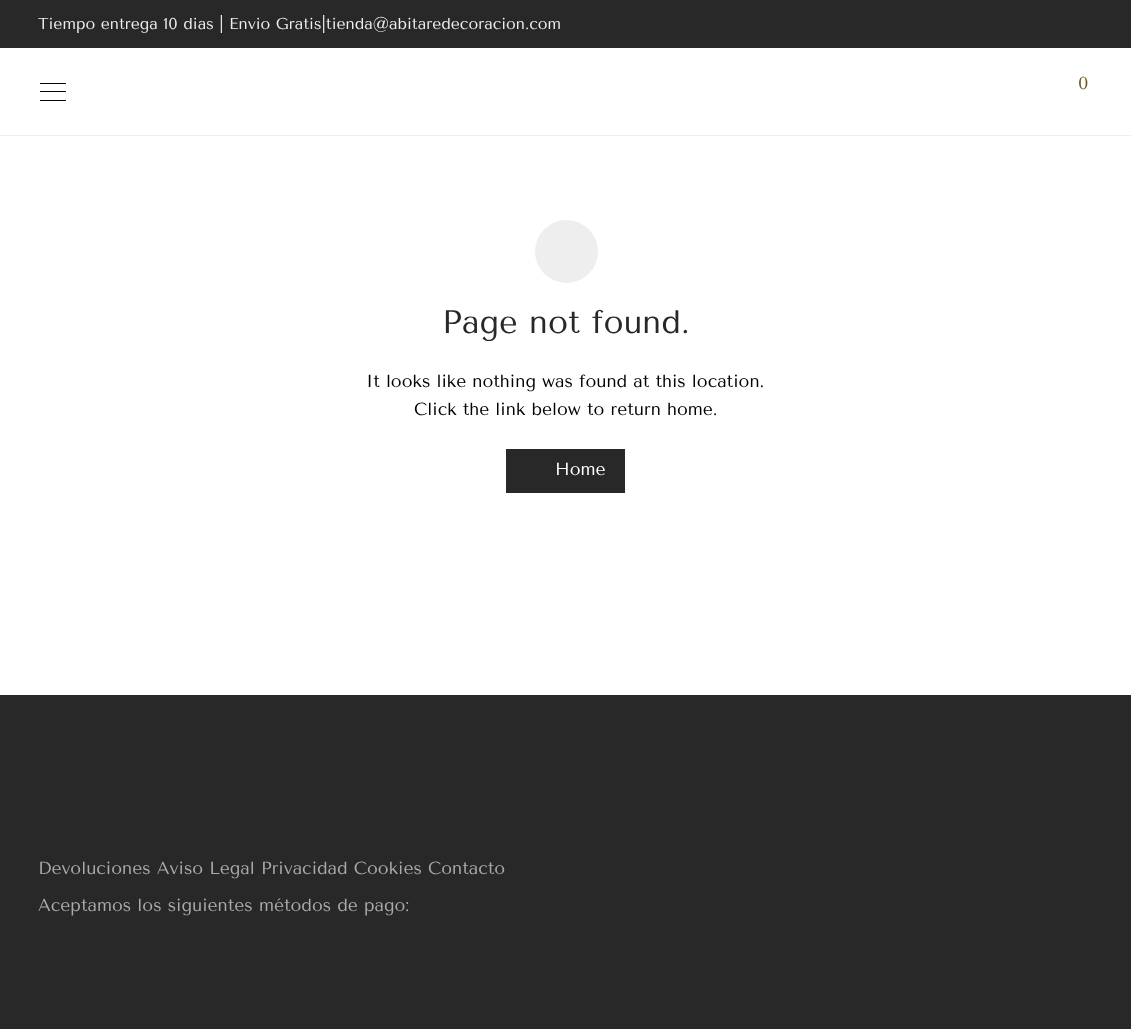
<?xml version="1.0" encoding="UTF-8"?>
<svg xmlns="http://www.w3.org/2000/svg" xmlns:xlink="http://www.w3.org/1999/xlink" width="1131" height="1029">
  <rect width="100%" height="100%" fill="#ffffff" />
  <rect width="1131" height="48" fill="#282828" />
  <rect y="135" width="1131" height="1" fill="#eeeeee" />
  <rect x="40" y="83" width="26" height="1" fill="#050505" />
  <rect x="40" y="91" width="26" height="1" fill="#050505" />
  <rect x="40" y="100" width="26" height="1" fill="#050505" />
  <circle cx="566.5" cy="251.5" r="31.5" fill="#eeeeee" />
  <rect x="506" y="449" width="119" height="44" fill="#282828" />
  <rect y="695" width="1131" height="334" fill="#282828" />
  <text x="38" y="29" style="font-family: Tenor Sans; font-size: 15.75px; fill: #eeeeee">Tiempo entrega 10 dias | Envio Gratis|tienda@abitaredecoracion.com</text>
  <text x="1078" y="89" style="font-family: Tenor Sans; font-size: 17.5px; fill: #705d1b">0</text>
  <text x="442" y="333" style="font-family: Tenor Sans; font-size: 32.5px; fill: #282828">Page not found.</text>
  <text x="366" y="387" style="font-family: Tenor Sans; font-size: 17.5px; fill: #000000">It looks like nothing was found at this location.</text>
  <text x="414" y="415" style="font-family: Tenor Sans; font-size: 17.5px; fill: #000000">Click the link below to return home.</text>
  <text x="555" y="475" style="font-family: Tenor Sans; font-size: 17.5px; fill: #ffffff">Home</text>
  <text x="38" y="874" style="font-family: Tenor Sans; font-size: 17.5px; fill: #aaaaaa">Devoluciones Aviso Legal Privacidad Cookies Contacto</text>
  <text x="38" y="911" style="font-family: Tenor Sans; font-size: 17.5px; fill: #aaaaaa">Aceptamos los siguientes métodos de pago:</text>
</svg>
